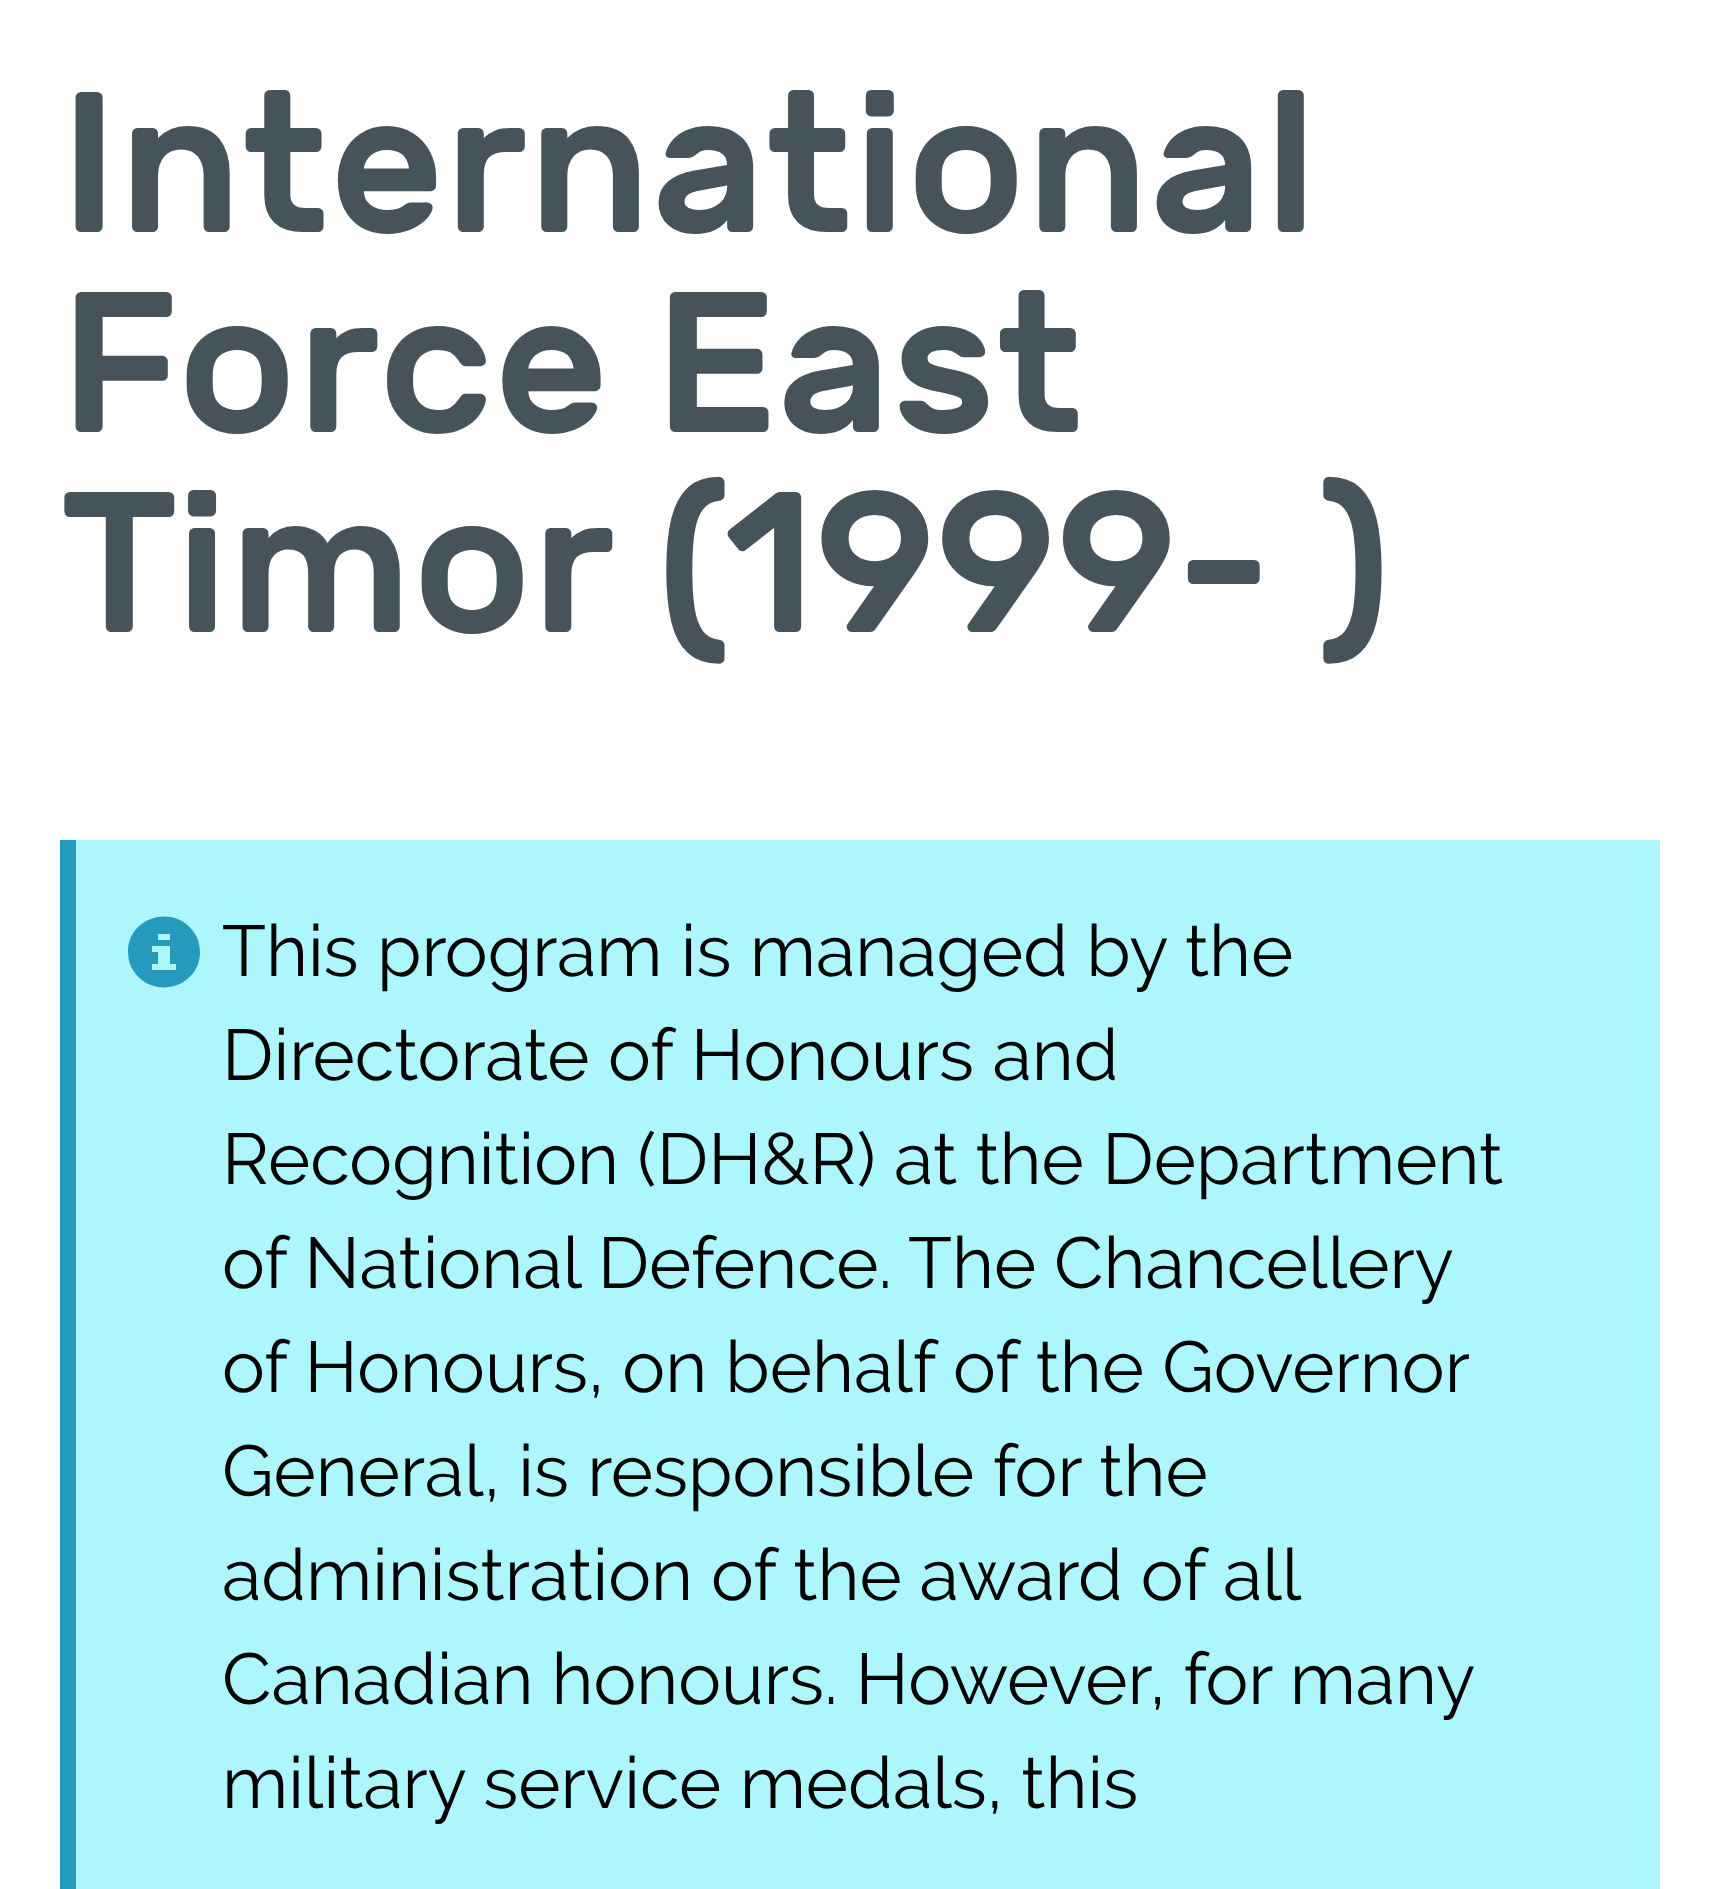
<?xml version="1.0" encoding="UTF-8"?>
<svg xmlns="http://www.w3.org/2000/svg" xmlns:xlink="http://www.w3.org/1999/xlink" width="1717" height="1889">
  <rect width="100%" height="100%" fill="#ffffff" />
  <rect x="76" y="840" width="1584" height="1049" fill="#acf6fc" />
  <rect x="60" y="840" width="16" height="1049" fill="#269abc" />
  <path d="M 133 970 c -4 -6 -5 -13 -5 -20 c 2 -35 49 -46 67 -16 c 4 6 5 13 5 20 c -2 35 -49 46 -67 16 z m 19 0 h 24 v -6 h -6 v -18 h -18 v 6 h 6 v 12 h -6 z m 6 -30 h 12 v -6 h -12 z" fill="#269abc" />
  <text x="60" y="232" style="font-family: Rubik; font-size: 200px; font-weight: 500; fill: #47535a">International</text>
  <text x="60" y="432" style="font-family: Rubik; font-size: 200px; font-weight: 500; fill: #47535a">Force East</text>
  <text x="60" y="632" style="font-family: Rubik; font-size: 200px; font-weight: 500; fill: #47535a">Timor (1999- )</text>
  <text x="222" y="976" style="font-family: Raleway; font-size: 72px; fill: #000000">This program is managed by the</text>
  <text x="222" y="1080" style="font-family: Raleway; font-size: 72px; fill: #000000">Directorate of Honours and</text>
  <text x="222" y="1184" style="font-family: Raleway; font-size: 72px; fill: #000000">Recognition (DH&amp;R) at the Department</text>
  <text x="222" y="1288" word-spacing="-0.5" style="font-family: Raleway; font-size: 72px; fill: #000000">of National Defence. The Chancellery</text>
  <text x="222" y="1392" word-spacing="-0.25" style="font-family: Raleway; font-size: 72px; fill: #000000">of Honours, on behalf of the Governor</text>
  <text x="222" y="1496" style="font-family: Raleway; font-size: 72px; fill: #000000">General, is responsible for the</text>
  <text x="222" y="1600" word-spacing="-0.5" style="font-family: Raleway; font-size: 72px; fill: #000000">administration of the award of all</text>
  <text x="222" y="1704" word-spacing="-0.5" style="font-family: Raleway; font-size: 72px; fill: #000000">Canadian honours. However, for many</text>
  <text x="222" y="1808" style="font-family: Raleway; font-size: 72px; fill: #000000">military service medals, this</text>
</svg>
